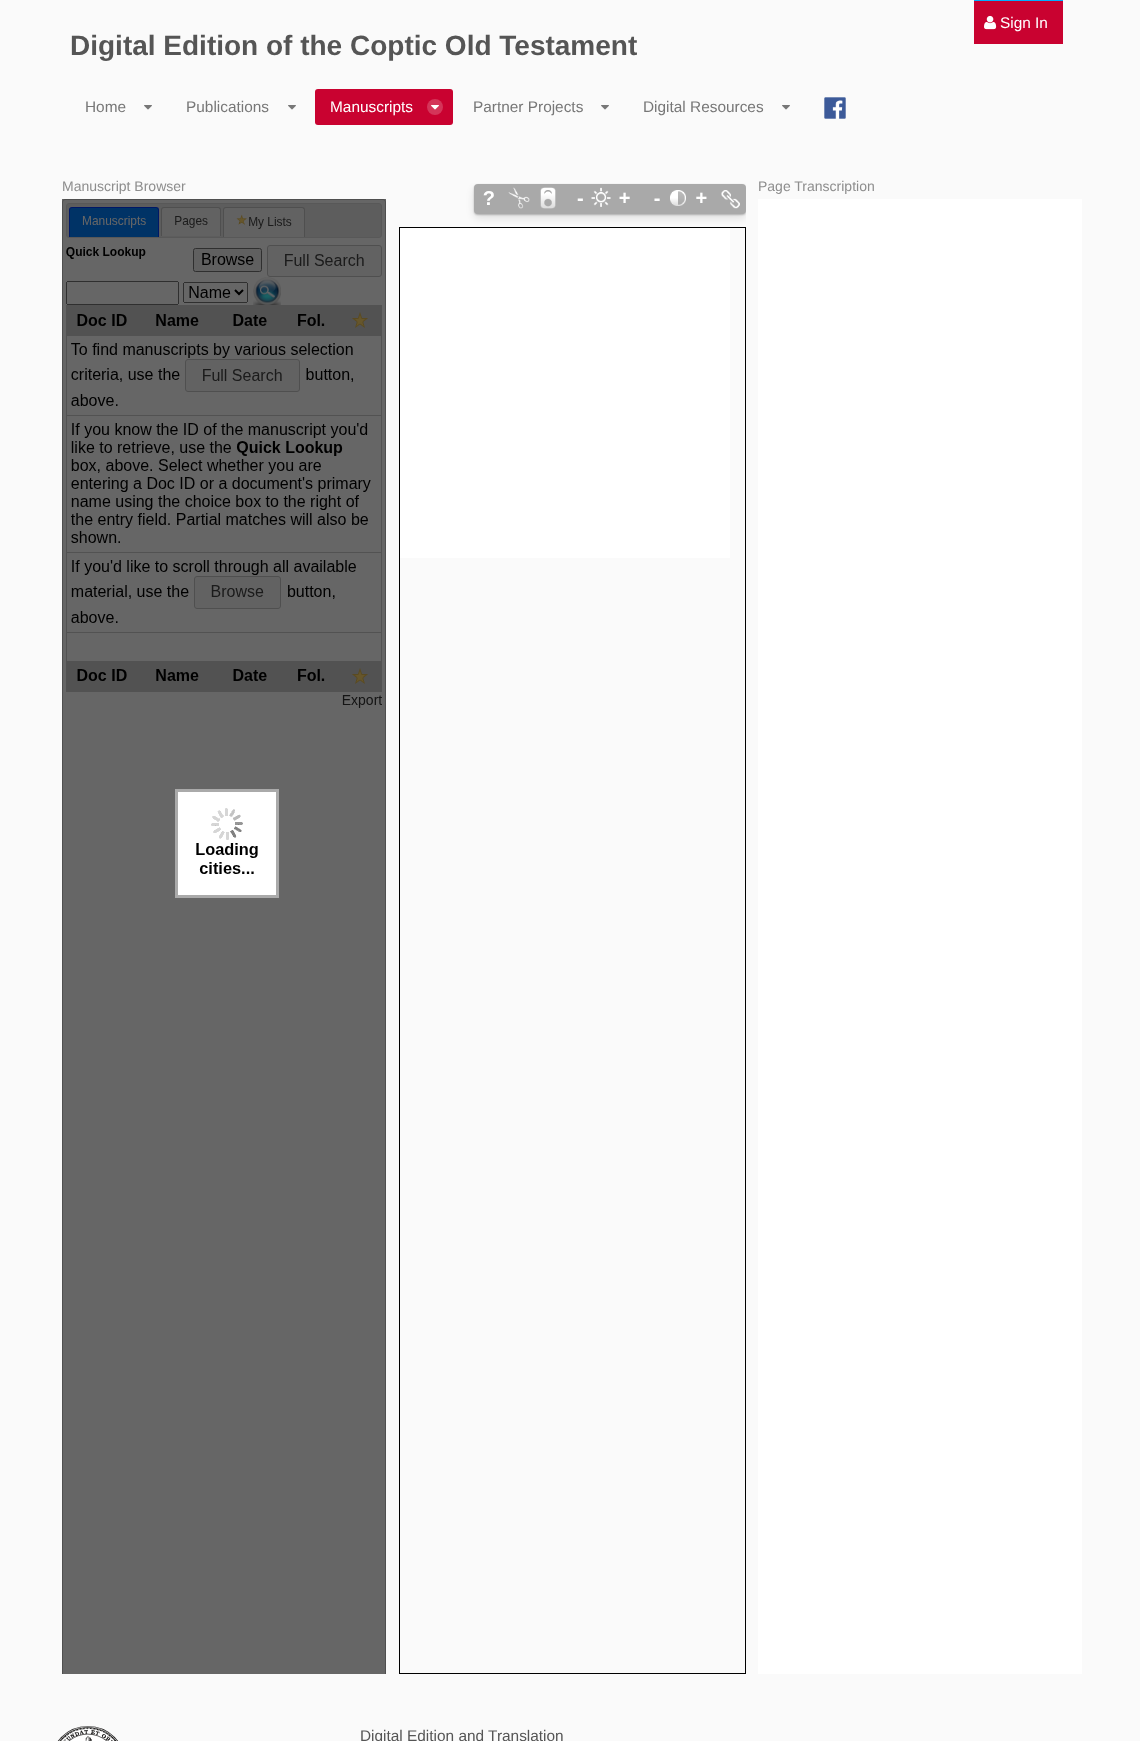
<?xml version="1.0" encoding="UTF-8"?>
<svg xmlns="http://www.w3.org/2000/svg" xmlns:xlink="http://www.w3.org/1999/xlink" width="1140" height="1741">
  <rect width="100%" height="100%" fill="#fafafa" />
  <rect x="974" width="89" height="1" fill="#00aeff" />
  <rect x="974" y="1" width="89" height="43" fill="#c90230" />
  <image x="984" y="15" width="13" height="15" xlink:href="image1.png" />
  <image x="144" y="105" width="8" height="5" xlink:href="image2.png" />
  <image x="288" y="105" width="8" height="5" xlink:href="image2.png" />
  <rect x="315" y="89" width="138" height="36" rx="3" fill="#c90230" />
  <circle cx="435" cy="107" r="8" fill="#d43559" />
  <image x="431" y="105" width="8" height="5" xlink:href="image3.png" />
  <image x="601" y="105" width="8" height="5" xlink:href="image2.png" />
  <image x="782" y="105" width="8" height="5" xlink:href="image2.png" />
  <image x="824" y="97" width="22" height="22" xlink:href="image4.png" />
  <image x="62" y="199" width="324" height="1475" xlink:href="image5.png" />
  <image x="399" y="183" width="347" height="1491" xlink:href="image6.png" />
  <rect x="758" y="199" width="324" height="1475" fill="#ffffff" />
  <image x="57" y="1726" width="61" height="15" xlink:href="image7.png" />
  <text x="1000" y="28" style="font-family: Liberation Sans; font-size: 15.4px; fill: #ffffff">Sign In</text>
  <text x="70" y="55" style="font-family: Liberation Sans; font-size: 28px; font-weight: bold; fill: #555555">Digital Edition of the Coptic Old Testament</text>
  <text x="85" y="112" style="font-family: Liberation Sans; font-size: 15.4px; fill: #777777">Home</text>
  <text x="186" y="112" style="font-family: Liberation Sans; font-size: 15.4px; fill: #777777">Publications</text>
  <text x="330" y="112" style="font-family: Liberation Sans; font-size: 15.4px; fill: #ffffff">Manuscripts</text>
  <text x="473" y="112" style="font-family: Liberation Sans; font-size: 15.4px; fill: #777777">Partner Projects</text>
  <text x="643" y="112" style="font-family: Liberation Sans; font-size: 15.4px; fill: #777777">Digital Resources</text>
  <text x="62" y="191" style="font-family: Liberation Sans; font-size: 14px; fill: #8d8d8d">Manuscript Browser</text>
  <text x="758" y="191" style="font-family: Liberation Sans; font-size: 14px; fill: #8d8d8d">Page Transcription</text>
  <text x="360" y="1741" style="font-family: Liberation Sans; font-size: 15.4px; fill: #555555">Digital Edition and Translation</text>
</svg>
